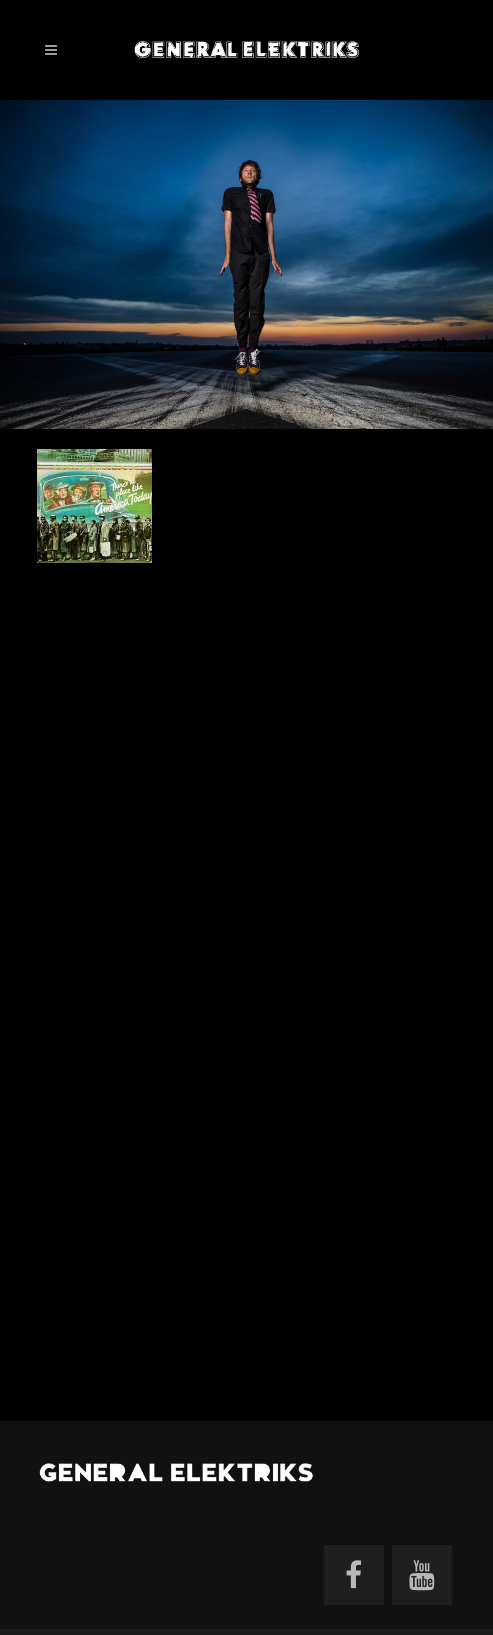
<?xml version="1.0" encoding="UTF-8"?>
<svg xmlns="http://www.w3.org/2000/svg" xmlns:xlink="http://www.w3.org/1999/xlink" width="493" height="1635">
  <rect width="100%" height="100%" fill="#000000" />
  <image x="45" y="45" width="12" height="10" xlink:href="image1.png" />
  <image x="134" y="41" width="225" height="18" xlink:href="image2.png" />
  <image x="0" y="100" width="493" height="329" xlink:href="image3.png" />
  <image x="37" y="449" width="115" height="114" xlink:href="image4.png" />
  <rect y="1421" width="493" height="208" fill="#111111" />
  <image x="39" y="1463" width="275" height="19" xlink:href="image5.png" />
  <rect x="324" y="1545" width="60" height="60" fill="#1f1f1f" />
  <image x="346" y="1560" width="16" height="29" xlink:href="image6.png" />
  <rect x="392" y="1545" width="60" height="60" fill="#1f1f1f" />
  <image x="409" y="1560" width="26" height="31" xlink:href="image7.png" />
  <rect y="1629" width="493" height="6" fill="#1b1b1b" />
</svg>
